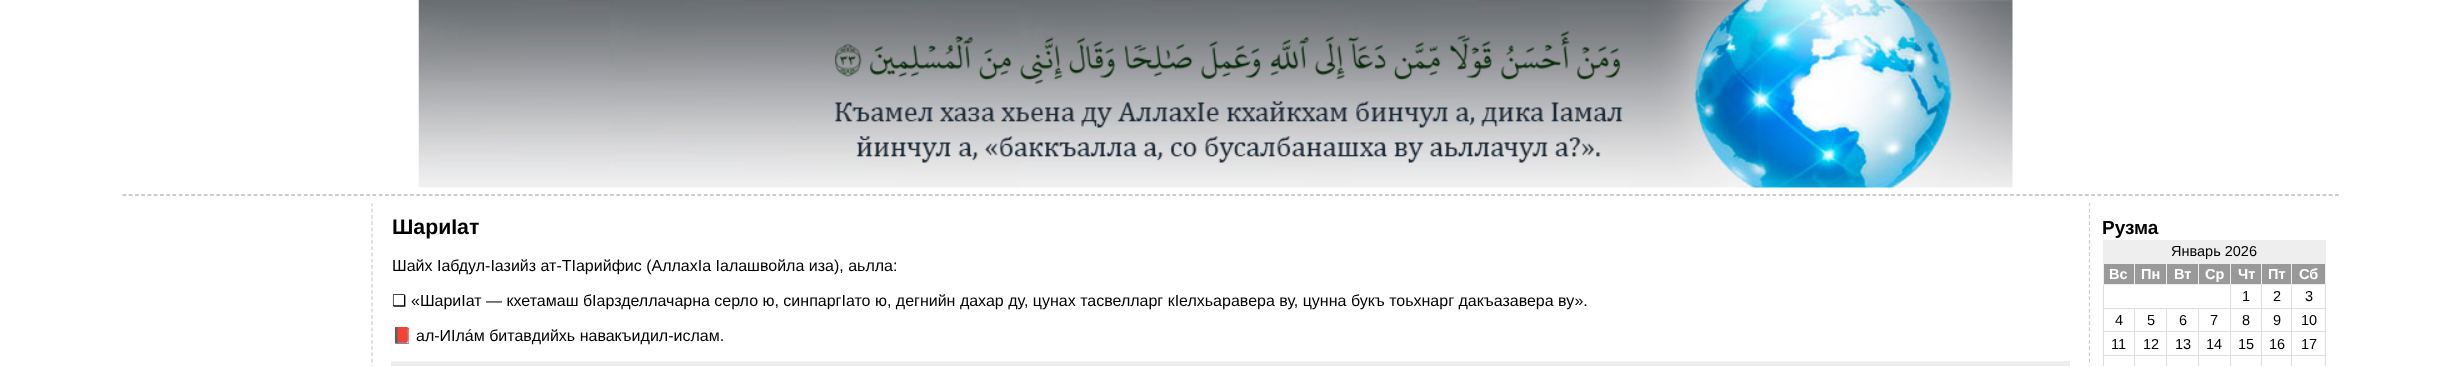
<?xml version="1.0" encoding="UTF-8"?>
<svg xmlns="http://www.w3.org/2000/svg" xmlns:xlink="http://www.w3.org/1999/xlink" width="2461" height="366">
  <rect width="100%" height="100%" fill="#ffffff" />
  <image x="418" y="0" width="1595" height="188" xlink:href="image1.png" />
  <path d="M 122.5 194.5 h 2216.5" fill="none" stroke="#cccccc" stroke-width="1.2" stroke-dasharray="3.75 2.5" />
  <path d="M 372 202.5 v 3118.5" fill="none" stroke="#cccccc" stroke-width="1.2" stroke-dasharray="3.75 2.5" />
  <path d="M 2089.5 202.5 v 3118.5" fill="none" stroke="#cccccc" stroke-width="1.2" stroke-dasharray="3.75 2.5" />
  <rect x="123" y="195" width="2216" height="8" fill="#ffffff" />
  <path d="M 122.5 195.5 h 2216.5" fill="none" stroke="#cccccc" stroke-width="1.2" stroke-dasharray="3.75 2.5" />
  <rect x="391" y="361" width="1679" height="5" fill="#eeeeee" />
  <rect x="2103" y="240" width="223" height="23" fill="#eeeeee" />
  <rect x="2104" y="264" width="30" height="20" fill="#999999" />
  <rect x="2291" y="263" width="35" height="1" fill="#eeeeee" />
  <rect x="2262" y="264" width="63" height="20" fill="#999999" />
  <rect x="2291" y="308" width="35" height="1" fill="#dddddd" />
  <rect x="2291" y="331" width="35" height="1" fill="#dddddd" />
  <rect x="2291" y="355" width="35" height="1" fill="#dddddd" />
  <rect x="2325" y="355" width="1" height="11" fill="#dddddd" />
  <rect x="2325" y="331" width="1" height="25" fill="#dddddd" />
  <rect x="2325" y="284" width="1" height="49" fill="#dddddd" />
  <rect x="2325" y="263" width="1" height="22" fill="#eeeeee" />
  <rect x="2291" y="355" width="1" height="11" fill="#dddddd" />
  <rect x="2261" y="355" width="32" height="1" fill="#dddddd" />
  <rect x="2291" y="331" width="1" height="25" fill="#dddddd" />
  <rect x="2261" y="331" width="32" height="1" fill="#dddddd" />
  <rect x="2291" y="308" width="1" height="25" fill="#dddddd" />
  <rect x="2261" y="308" width="32" height="1" fill="#dddddd" />
  <rect x="2291" y="284" width="1" height="25" fill="#dddddd" />
  <rect x="2291" y="284" width="35" height="1" fill="#eeeeee" />
  <rect x="2291" y="263" width="1" height="22" fill="#eeeeee" />
  <rect x="2261" y="263" width="32" height="1" fill="#eeeeee" />
  <rect x="2261" y="355" width="1" height="11" fill="#dddddd" />
  <rect x="2230" y="355" width="33" height="1" fill="#dddddd" />
  <rect x="2261" y="331" width="1" height="25" fill="#dddddd" />
  <rect x="2230" y="331" width="33" height="1" fill="#dddddd" />
  <rect x="2261" y="308" width="1" height="25" fill="#dddddd" />
  <rect x="2230" y="308" width="33" height="1" fill="#dddddd" />
  <rect x="2261" y="284" width="1" height="25" fill="#dddddd" />
  <rect x="2261" y="284" width="32" height="1" fill="#eeeeee" />
  <rect x="2261" y="263" width="1" height="22" fill="#eeeeee" />
  <rect x="2230" y="263" width="33" height="1" fill="#eeeeee" />
  <rect x="2230" y="355" width="1" height="11" fill="#dddddd" />
  <rect x="2198" y="355" width="33" height="1" fill="#dddddd" />
  <rect x="2230" y="331" width="1" height="25" fill="#dddddd" />
  <rect x="2198" y="331" width="33" height="1" fill="#dddddd" />
  <rect x="2230" y="308" width="1" height="25" fill="#dddddd" />
  <rect x="2198" y="308" width="33" height="1" fill="#dddddd" />
  <rect x="2230" y="284" width="1" height="25" fill="#dddddd" />
  <rect x="2230" y="284" width="33" height="1" fill="#eeeeee" />
  <rect x="2230" y="263" width="1" height="22" fill="#eeeeee" />
  <rect x="2198" y="263" width="33" height="1" fill="#eeeeee" />
  <rect x="2198" y="284" width="33" height="1" fill="#eeeeee" />
  <rect x="2198" y="263" width="1" height="22" fill="#eeeeee" />
  <rect x="2166" y="263" width="33" height="1" fill="#eeeeee" />
  <rect x="2135" y="264" width="63" height="20" fill="#999999" />
  <rect x="2166" y="284" width="33" height="1" fill="#eeeeee" />
  <rect x="2166" y="263" width="1" height="22" fill="#eeeeee" />
  <rect x="2134" y="263" width="34" height="1" fill="#eeeeee" />
  <rect x="2134" y="284" width="34" height="1" fill="#eeeeee" />
  <rect x="2134" y="263" width="1" height="22" fill="#eeeeee" />
  <rect x="2103" y="263" width="32" height="1" fill="#eeeeee" />
  <rect x="2198" y="355" width="1" height="11" fill="#dddddd" />
  <rect x="2166" y="355" width="33" height="1" fill="#dddddd" />
  <rect x="2198" y="331" width="1" height="25" fill="#dddddd" />
  <rect x="2166" y="331" width="33" height="1" fill="#dddddd" />
  <rect x="2198" y="308" width="1" height="25" fill="#dddddd" />
  <rect x="2166" y="308" width="33" height="1" fill="#dddddd" />
  <rect x="2166" y="355" width="1" height="11" fill="#dddddd" />
  <rect x="2134" y="355" width="34" height="1" fill="#dddddd" />
  <rect x="2166" y="331" width="1" height="25" fill="#dddddd" />
  <rect x="2134" y="331" width="34" height="1" fill="#dddddd" />
  <rect x="2166" y="308" width="1" height="25" fill="#dddddd" />
  <rect x="2134" y="308" width="34" height="1" fill="#dddddd" />
  <rect x="2134" y="355" width="1" height="11" fill="#dddddd" />
  <rect x="2103" y="355" width="32" height="1" fill="#dddddd" />
  <rect x="2134" y="331" width="1" height="25" fill="#dddddd" />
  <rect x="2103" y="331" width="32" height="1" fill="#dddddd" />
  <rect x="2134" y="308" width="1" height="25" fill="#dddddd" />
  <rect x="2103" y="308" width="32" height="1" fill="#dddddd" />
  <rect x="2103" y="355" width="1" height="11" fill="#dddddd" />
  <rect x="2103" y="331" width="1" height="25" fill="#dddddd" />
  <rect x="2103" y="284" width="1" height="49" fill="#dddddd" />
  <rect x="2103" y="284" width="32" height="1" fill="#eeeeee" />
  <rect x="2103" y="263" width="1" height="22" fill="#eeeeee" />
  <rect x="2199" y="264" width="31" height="20" fill="#999999" />
  <rect x="2231" y="264" width="30" height="20" fill="#999999" />
  <text x="392" y="234" style="font-family: Liberation Sans; font-size: 21.25px; font-weight: bold; fill: #000000">ШариIат</text>
  <text x="392" y="271" style="font-family: Liberation Sans; font-size: 16px; fill: #000000">Шайх Iабдул-Iазийз ат-ТIарийфис (АллахIа Iалашвойла иза), аьлла:</text>
  <text x="392" y="306" style="font-family: DejaVu Sans; font-size: 16px; fill: #000000">❏</text>
  <text x="411" y="306" style="font-family: Liberation Sans; font-size: 16px; fill: #000000">«ШариIат — кхетамаш бIарзделлачарна серло ю, синпаргIато ю, дегнийн дахар ду, цунах тасвелларг кIелхьаравера ву, цунна букъ тоьхнарг дакъазавера ву».</text>
  <text x="392" y="341" style="font-family: Noto Color Emoji; font-size: 16px; fill: #000000">📕</text>
  <text x="416" y="341" style="font-family: Liberation Sans; font-size: 16px; fill: #000000">ал-ИIлáм битавдийхь навакъидил-ислам.</text>
  <text x="2102" y="234" style="font-family: Liberation Sans; font-size: 19px; font-weight: bold; fill: #000000">Рузма</text>
  <text x="2171" y="256" style="font-family: Liberation Sans; font-size: 14.5px; fill: #000000">Январь 2026</text>
  <text x="2109" y="279" style="font-family: Liberation Sans; font-size: 14.5px; font-weight: bold; fill: #ffffff">Вс</text>
  <text x="2141" y="279" style="font-family: Liberation Sans; font-size: 14.5px; font-weight: bold; fill: #ffffff">Пн</text>
  <text x="2174" y="279" style="font-family: Liberation Sans; font-size: 14.5px; font-weight: bold; fill: #ffffff">Вт</text>
  <text x="2205" y="279" style="font-family: Liberation Sans; font-size: 14.5px; font-weight: bold; fill: #ffffff">Ср</text>
  <text x="2238" y="279" style="font-family: Liberation Sans; font-size: 14.5px; font-weight: bold; fill: #ffffff">Чт</text>
  <text x="2268" y="279" style="font-family: Liberation Sans; font-size: 14.5px; font-weight: bold; fill: #ffffff">Пт</text>
  <text x="2299" y="279" style="font-family: Liberation Sans; font-size: 14.5px; font-weight: bold; fill: #ffffff">Сб</text>
  <text x="2242" y="301" style="font-family: Liberation Sans; font-size: 14.5px; fill: #000000">1</text>
  <text x="2273" y="301" style="font-family: Liberation Sans; font-size: 14.5px; fill: #000000">2</text>
  <text x="2305" y="301" style="font-family: Liberation Sans; font-size: 14.5px; fill: #000000">3</text>
  <text x="2115" y="325" style="font-family: Liberation Sans; font-size: 14.5px; fill: #000000">4</text>
  <text x="2147" y="325" style="font-family: Liberation Sans; font-size: 14.5px; fill: #000000">5</text>
  <text x="2179" y="325" style="font-family: Liberation Sans; font-size: 14.5px; fill: #000000">6</text>
  <text x="2210" y="325" style="font-family: Liberation Sans; font-size: 14.5px; fill: #000000">7</text>
  <text x="2242" y="325" style="font-family: Liberation Sans; font-size: 14.5px; fill: #000000">8</text>
  <text x="2273" y="325" style="font-family: Liberation Sans; font-size: 14.5px; fill: #000000">9</text>
  <text x="2301" y="325" style="font-family: Liberation Sans; font-size: 14.5px; fill: #000000">10</text>
  <text x="2111" y="349" style="font-family: Liberation Sans; font-size: 14.5px; fill: #000000">11</text>
  <text x="2143" y="349" style="font-family: Liberation Sans; font-size: 14.5px; fill: #000000">12</text>
  <text x="2175" y="349" style="font-family: Liberation Sans; font-size: 14.5px; fill: #000000">13</text>
  <text x="2206" y="349" style="font-family: Liberation Sans; font-size: 14.5px; fill: #000000">14</text>
  <text x="2238" y="349" style="font-family: Liberation Sans; font-size: 14.5px; fill: #000000">15</text>
  <text x="2269" y="349" style="font-family: Liberation Sans; font-size: 14.5px; fill: #000000">16</text>
  <text x="2301" y="349" style="font-family: Liberation Sans; font-size: 14.5px; fill: #000000">17</text>
</svg>
